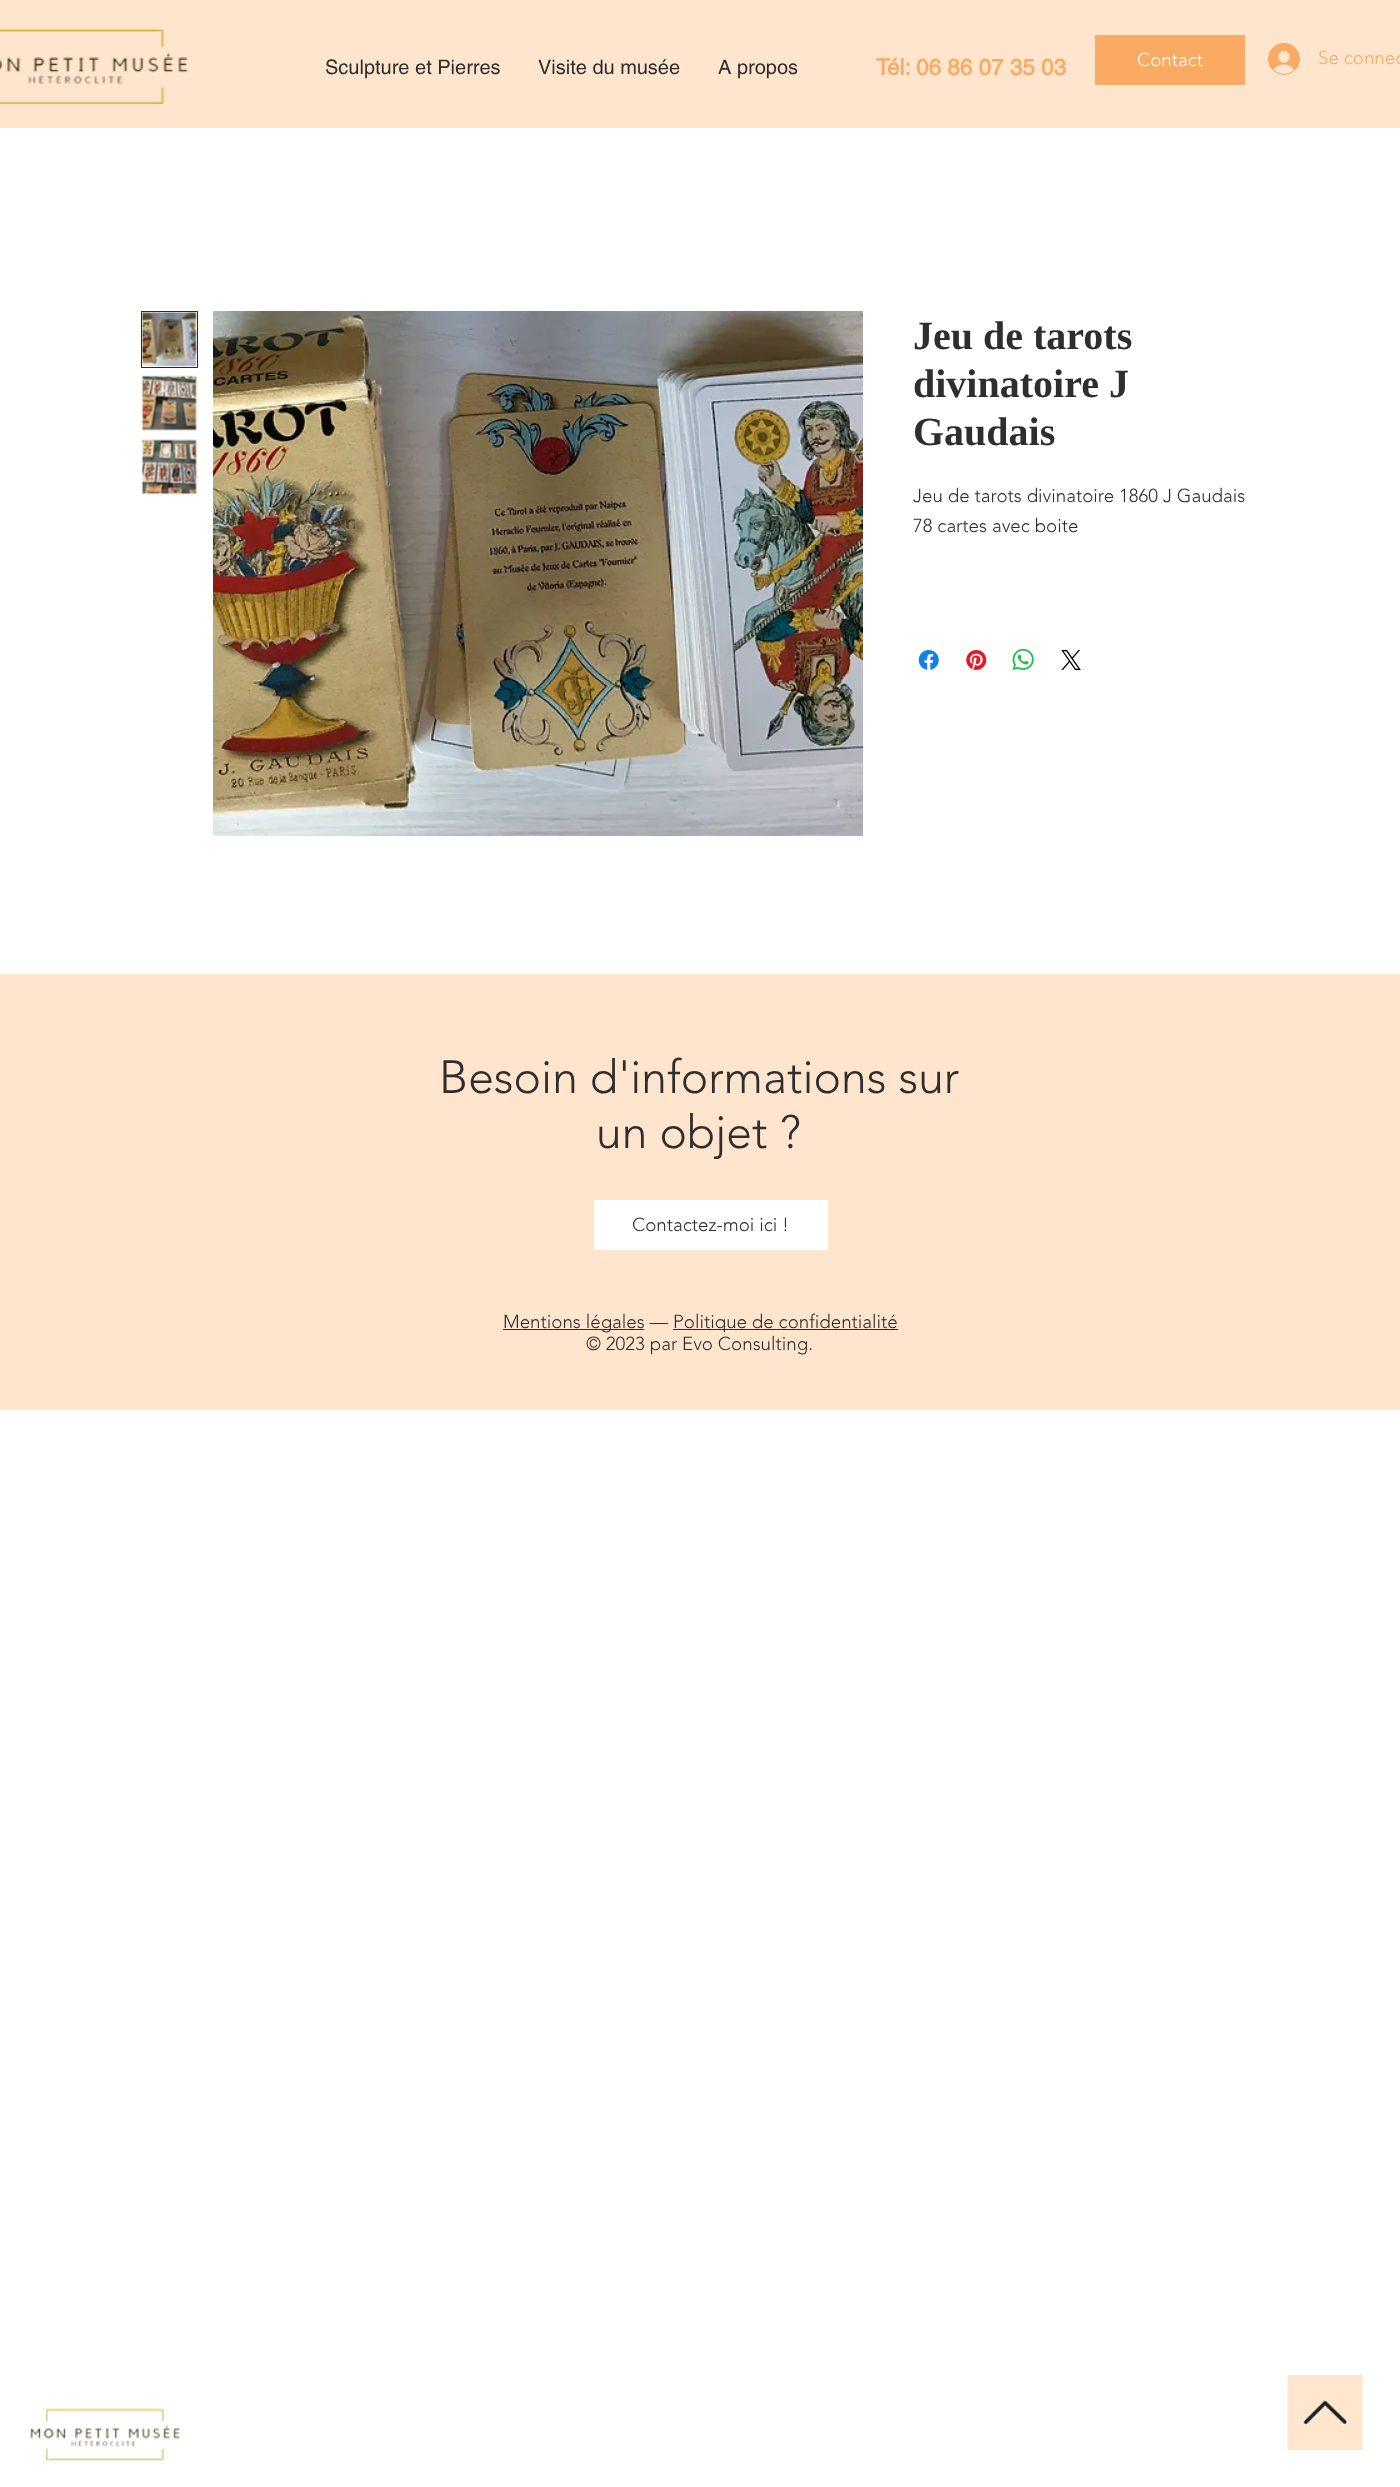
<?xml version="1.0" encoding="UTF-8"?>
<svg xmlns="http://www.w3.org/2000/svg" xmlns:xlink="http://www.w3.org/1999/xlink" width="1400" height="2487">
  <rect width="100%" height="100%" fill="#ffffff" />
  <rect width="1400" height="128" fill="#ffe5ce" />
  <image x="0" y="28" width="188" height="77" xlink:href="image1.png" />
  <rect x="1095" y="35" width="150" height="50" fill="#faaa62" />
  <image x="1268" y="43" width="32" height="32" xlink:href="image2.png" />
  <rect x="141.5" y="311.5" width="56" height="56" fill="none" stroke="#2f2e2e" />
  <image x="142" y="312" width="55" height="55" xlink:href="image3.png" />
  <rect x="141.5" y="375.5" width="56" height="55" fill="none" stroke="#f8f8f8" />
  <image x="142" y="375" width="55" height="56" xlink:href="image4.png" />
  <rect x="141.5" y="439.5" width="56" height="55" fill="none" stroke="#f8f8f8" />
  <image x="142" y="439" width="55" height="56" xlink:href="image5.png" />
  <image x="213" y="311" width="650" height="525" xlink:href="image6.png" />
  <image x="918" y="650" width="21" height="20" xlink:href="image7.png" />
  <image x="966" y="650" width="21" height="20" xlink:href="image8.png" />
  <image x="1012" y="648" width="22" height="23" xlink:href="image9.png" />
  <image x="1061" y="650" width="20" height="20" xlink:href="image10.png" />
  <rect y="974" width="1400" height="436" fill="#ffe5ce" />
  <rect x="594" y="1200" width="234" height="50" fill="#ffffff" />
  <rect x="503" y="1329" width="141" height="1" fill="#2f2e2e" />
  <rect x="673" y="1329" width="225" height="1" fill="#2f2e2e" />
  <image x="30" y="2408" width="151" height="54" xlink:href="image11.png" />
  <image x="1287" y="2375" width="76" height="75" xlink:href="image12.png" />
  <text x="325" y="74" style="font-family: helvetica; font-size: 20px; fill: #2f2e2e">Sculpture et Pierres</text>
  <text x="538" y="74" style="font-family: helvetica; font-size: 20px; fill: #2f2e2e">Visite du musée</text>
  <text x="718" y="74" style="font-family: helvetica; font-size: 20px; fill: #2f2e2e">A propos</text>
  <text x="876" y="75" style="font-family: helvetica; font-size: 22.5px; font-weight: bold; fill: #faaa62">Tél: 06 86 07 35 03</text>
  <text x="1137" y="66" style="font-family: 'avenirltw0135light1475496'; font-size: 18.75px; font-weight: 300; fill: #ffffff">Contact</text>
  <text x="1318" y="64" style="font-family: 'avenirltw0135light1475496'; font-size: 18.75px; font-weight: 300; fill: #faaa62">Se connec</text>
  <text x="913" y="349" style="font-family: Liberation Serif; font-size: 40px; font-weight: bold; fill: #2f2e2e">Jeu de tarots</text>
  <text x="913" y="397" style="font-family: Liberation Serif; font-size: 40px; font-weight: bold; fill: #2f2e2e">divinatoire J</text>
  <text x="913" y="445" style="font-family: Liberation Serif; font-size: 40px; font-weight: bold; fill: #2f2e2e">Gaudais</text>
  <text x="913" y="502" style="font-family: 'avenirltw0135light1475496'; font-size: 18.75px; font-weight: 300; fill: #2f2e2e">Jeu de tarots divinatoire 1860 J Gaudais</text>
  <text x="913" y="532" style="font-family: 'avenirltw0135light1475496'; font-size: 18.75px; font-weight: 300; fill: #2f2e2e">78 cartes avec boite</text>
  <text x="439" y="1093" style="font-family: 'avenirltw0135light1475496'; font-size: 46.25px; font-weight: 300; fill: #2f2e2e">Besoin d'informations sur</text>
  <text x="596" y="1148" style="font-family: 'avenirltw0135light1475496'; font-size: 46.25px; font-weight: 300; fill: #2f2e2e">un objet ?</text>
  <text x="632" y="1231" style="font-family: 'avenirltw0135light1475496'; font-size: 18.75px; font-weight: 300; fill: #2f2e2e">Contactez-moi ici !</text>
  <text x="503" y="1328" style="font-family: 'avenirltw0135light1475496'; font-size: 18.75px; font-weight: 300; fill: #2f2e2e">Mentions légales —</text>
  <text x="673" y="1328" style="font-family: 'avenirltw0135light1475496'; font-size: 18.75px; font-weight: 300; fill: #2f2e2e">Politique de confidentialité</text>
  <text x="586" y="1350" style="font-family: 'avenirltw0135light1475496'; font-size: 18.75px; font-weight: 300; fill: #2f2e2e">© 2023 par Evo Consulting.</text>
</svg>
